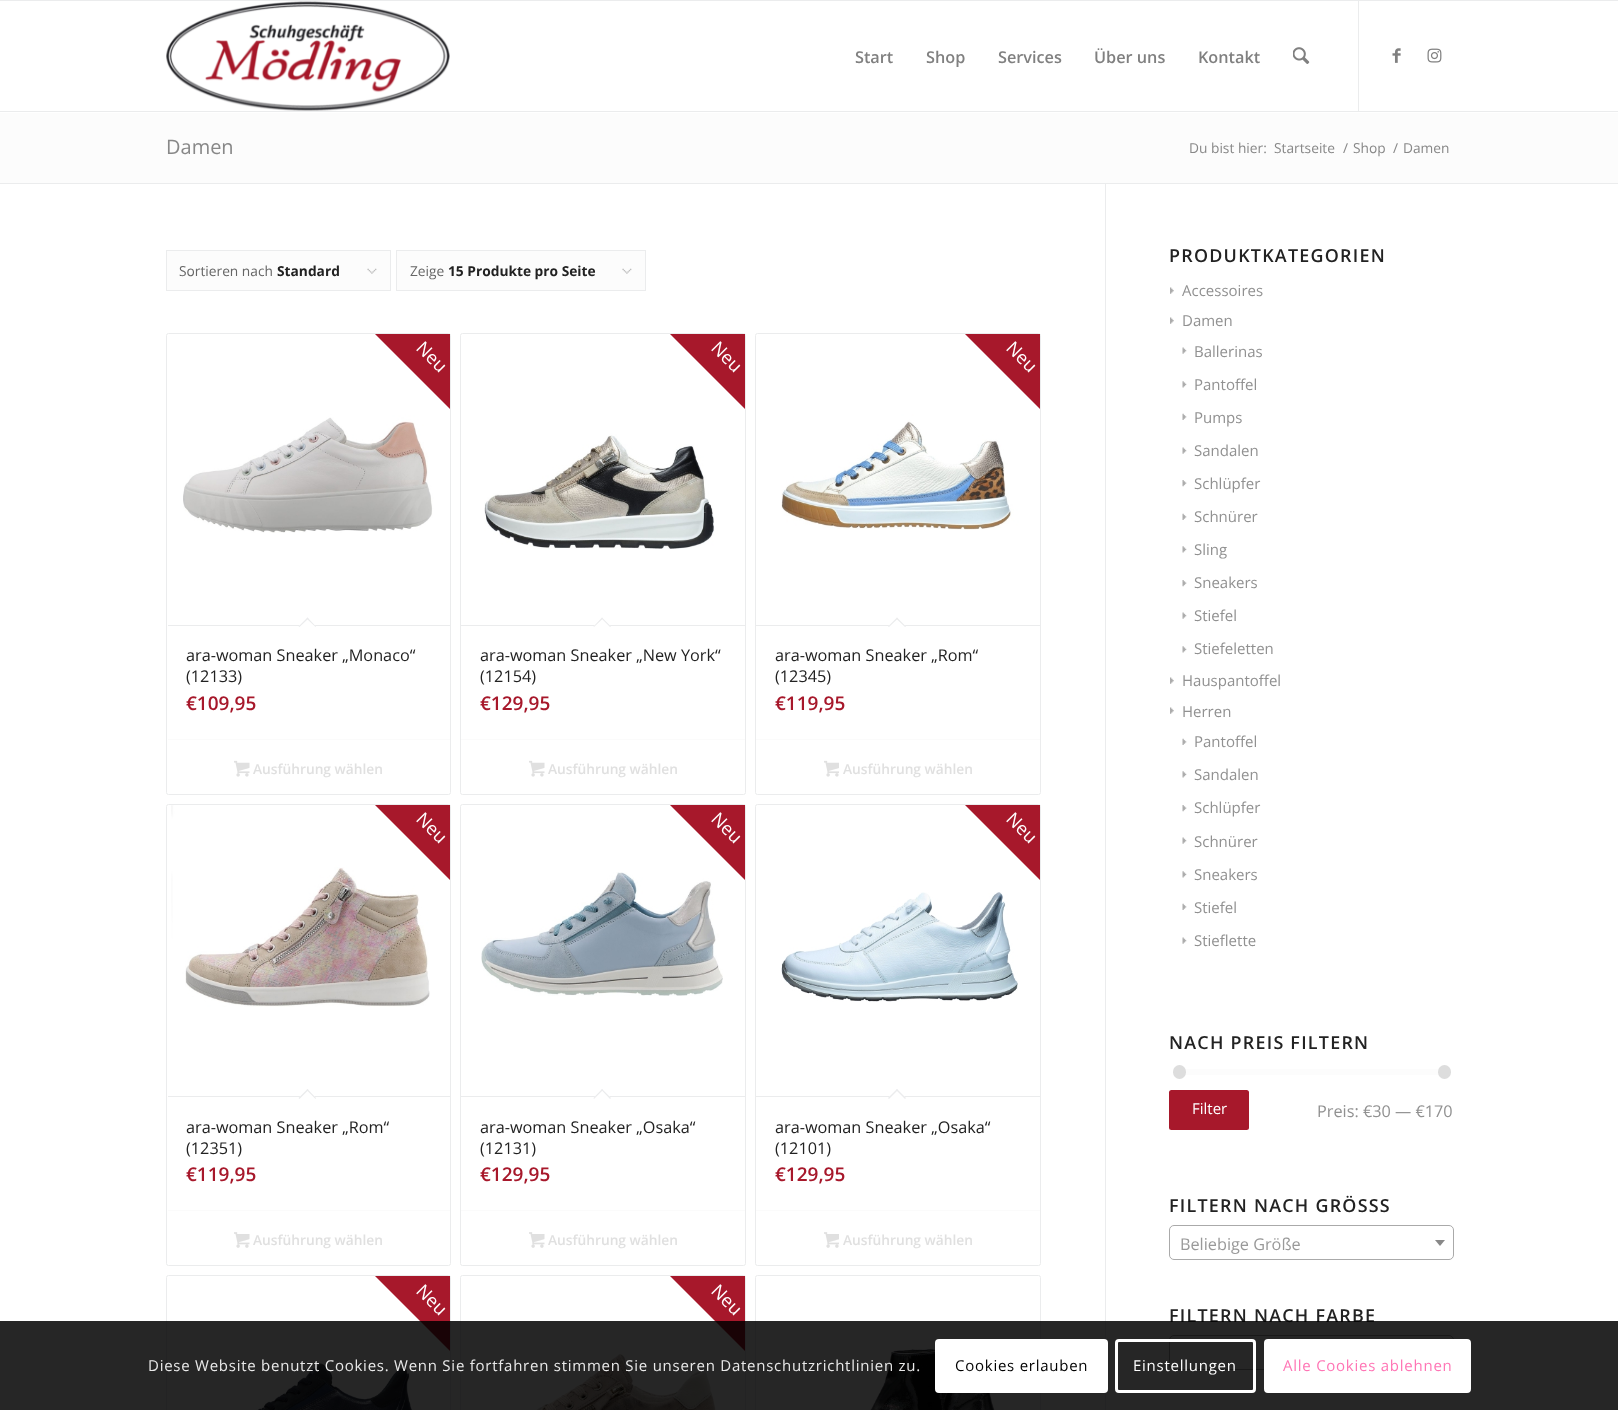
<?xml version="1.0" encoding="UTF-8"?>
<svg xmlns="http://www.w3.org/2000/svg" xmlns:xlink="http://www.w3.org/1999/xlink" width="1618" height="1410">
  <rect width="100%" height="100%" fill="#ffffff" />
  <rect width="1618" height="1" fill="#ebeced" />
  <rect y="111" width="1618" height="1" fill="#ebeced" />
  <image x="166" y="1" width="284" height="110" xlink:href="image1.png" />
  <rect x="1358" y="1" width="1" height="110" fill="#ebeced" />
  <image x="1293" y="47" width="17" height="17" xlink:href="image2.png" />
  <image x="1392" y="48" width="9" height="15" xlink:href="image3.png" />
  <image x="1427" y="48" width="15" height="15" xlink:href="image4.png" />
  <rect y="113" width="1618" height="70" fill="#fcfcfc" />
  <rect y="183" width="1618" height="1" fill="#ebeced" />
  <rect x="1105" y="184" width="1" height="1226" fill="#ebeced" />
  <rect x="167" y="251" width="223" height="39" fill="#fcfcfc" />
  <image x="367" y="268" width="10" height="6" xlink:href="image5.png" />
  <rect x="166.5" y="250.5" width="224" height="40" fill="none" stroke="#ebeced" />
  <rect x="397" y="251" width="248" height="39" fill="#fcfcfc" />
  <image x="622" y="268" width="10" height="6" xlink:href="image5.png" />
  <rect x="396.5" y="250.5" width="249" height="40" fill="none" stroke="#ebeced" />
  <rect x="166.5" y="333.5" width="284" height="461" rx="2" fill="none" stroke="#ebeced" />
  <image x="183" y="334" width="267" height="199" xlink:href="image6.png" />
  <path d="M 450 334 v 75 l -75 -75 z" fill="#a7182b" />
  <rect x="168" y="625" width="282" height="1" fill="#ebeced" />
  <path d="M 307.5 617.5 l 8.5 9 l -8.5 8.5 l -9 -8.5 z" fill="#ffffff" />
  <path d="M 307.5 617.5 l 8.5 9 l -0.5 0.5 l -9 -8.5 z" fill="#ebeced" />
  <path d="M 307.5 617.5 l 1 1 l -9 8.5 l -1 -0.5 z" fill="#ebeced" />
  <rect x="168" y="739" width="282" height="1" fill="#fbfbfb" />
  <image x="234" y="760" width="16" height="17" xlink:href="image7.png" />
  <rect x="460.5" y="333.5" width="285" height="461" rx="2" fill="none" stroke="#ebeced" />
  <image x="484" y="334" width="261" height="215" xlink:href="image8.png" />
  <path d="M 745 334 v 75 l -75 -75 z" fill="#a7182b" />
  <rect x="461" y="625" width="284" height="1" fill="#ebeced" />
  <path d="M 602 617.5 l 9 9 l -9 8.5 l -8.5 -8.5 z" fill="#ffffff" />
  <path d="M 602 617.5 l 9 9 l -1 0.5 l -8.5 -8.5 z" fill="#ebeced" />
  <path d="M 602 617.5 l 1 1 l -9 8.5 l -0.5 -0.5 z" fill="#ebeced" />
  <rect x="461" y="739" width="284" height="1" fill="#fbfbfb" />
  <image x="529" y="760" width="16" height="17" xlink:href="image7.png" />
  <rect x="755.5" y="333.5" width="285" height="461" rx="2" fill="none" stroke="#ebeced" />
  <image x="781" y="334" width="259" height="196" xlink:href="image9.png" />
  <path d="M 1040 334 v 75 l -75 -75 z" fill="#a7182b" />
  <rect x="756" y="625" width="284" height="1" fill="#ebeced" />
  <path d="M 897 617.5 l 9 9 l -9 8.5 l -9 -8.5 z" fill="#ffffff" />
  <path d="M 897 617.5 l 9 9 l -1 0.5 l -9 -8.5 z" fill="#ebeced" />
  <path d="M 897 617.5 l 1 1 l -9 8.5 l -1 -0.5 z" fill="#ebeced" />
  <rect x="756" y="739" width="284" height="1" fill="#fbfbfb" />
  <image x="824" y="760" width="15" height="17" xlink:href="image10.png" />
  <rect x="166.5" y="804.5" width="284" height="461" rx="2" fill="none" stroke="#ebeced" />
  <image x="171" y="805" width="259" height="202" xlink:href="image11.png" />
  <path d="M 450 805 v 75 l -75 -75 z" fill="#a7182b" />
  <rect x="168" y="1096" width="282" height="1" fill="#ebeced" />
  <path d="M 307.5 1089 l 8.5 9 l -8.5 9 l -9 -9 z" fill="#ffffff" />
  <path d="M 307.5 1089 l 8.5 9 l -0.5 1 l -9 -9 z" fill="#ebeced" />
  <path d="M 307.5 1089 l 1 1 l -9 9 l -1 -1 z" fill="#ebeced" />
  <rect x="168" y="1210" width="282" height="1" fill="#fbfbfb" />
  <image x="234" y="1232" width="16" height="16" xlink:href="image12.png" />
  <rect x="460.5" y="804.5" width="285" height="461" rx="2" fill="none" stroke="#ebeced" />
  <image x="481" y="872" width="242" height="124" xlink:href="image13.png" />
  <path d="M 745 805 v 75 l -75 -75 z" fill="#a7182b" />
  <rect x="461" y="1096" width="284" height="1" fill="#ebeced" />
  <path d="M 602 1089 l 9 9 l -9 9 l -8.5 -9 z" fill="#ffffff" />
  <path d="M 602 1089 l 9 9 l -1 1 l -8.5 -9 z" fill="#ebeced" />
  <path d="M 602 1089 l 1 1 l -9 9 l -0.5 -1 z" fill="#ebeced" />
  <rect x="461" y="1210" width="284" height="1" fill="#fbfbfb" />
  <image x="529" y="1232" width="16" height="16" xlink:href="image12.png" />
  <rect x="755.5" y="804.5" width="285" height="461" rx="2" fill="none" stroke="#ebeced" />
  <path d="M 1040 805 v 75 l -75 -75 z" fill="#a7182b" />
  <image x="781" y="892" width="237" height="110" xlink:href="image14.png" />
  <rect x="756" y="1096" width="284" height="1" fill="#ebeced" />
  <path d="M 897 1089 l 9 9 l -9 9 l -9 -9 z" fill="#ffffff" />
  <path d="M 897 1089 l 9 9 l -1 1 l -9 -9 z" fill="#ebeced" />
  <path d="M 897 1089 l 1 1 l -9 9 l -1 -1 z" fill="#ebeced" />
  <rect x="756" y="1210" width="284" height="1" fill="#fbfbfb" />
  <image x="824" y="1232" width="15" height="16" xlink:href="image15.png" />
  <rect x="166.5" y="1275.5" width="284" height="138" rx="2" fill="none" stroke="#ebeced" />
  <path d="M 450 1276 v 75 l -75 -75 z" fill="#a7182b" />
  <image x="257" y="1363" width="155" height="47" xlink:href="image16.png" />
  <rect x="460.5" y="1275.5" width="285" height="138" rx="2" fill="none" stroke="#ebeced" />
  <path d="M 745 1276 v 75 l -75 -75 z" fill="#a7182b" />
  <image x="537" y="1354" width="179" height="56" xlink:href="image17.png" />
  <rect x="755.5" y="1275.5" width="285" height="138" rx="2" fill="none" stroke="#ebeced" />
  <image x="870" y="1347" width="125" height="63" xlink:href="image18.png" />
  <image x="1170" y="287" width="4" height="7" xlink:href="image19.png" />
  <image x="1170" y="317" width="4" height="7" xlink:href="image19.png" />
  <image x="1182" y="347" width="5" height="7" xlink:href="image20.png" />
  <image x="1182" y="381" width="5" height="7" xlink:href="image21.png" />
  <image x="1182" y="413" width="5" height="7" xlink:href="image22.png" />
  <image x="1182" y="447" width="5" height="7" xlink:href="image20.png" />
  <image x="1182" y="480" width="5" height="7" xlink:href="image23.png" />
  <image x="1182" y="513" width="5" height="7" xlink:href="image22.png" />
  <image x="1182" y="546" width="5" height="7" xlink:href="image21.png" />
  <image x="1182" y="580" width="5" height="7" xlink:href="image23.png" />
  <image x="1182" y="612" width="5" height="7" xlink:href="image20.png" />
  <image x="1182" y="646" width="5" height="7" xlink:href="image21.png" />
  <image x="1170" y="677" width="4" height="7" xlink:href="image19.png" />
  <image x="1170" y="707" width="4" height="7" xlink:href="image19.png" />
  <image x="1182" y="738" width="5" height="7" xlink:href="image22.png" />
  <image x="1182" y="771" width="5" height="7" xlink:href="image21.png" />
  <image x="1182" y="805" width="5" height="7" xlink:href="image23.png" />
  <image x="1182" y="837" width="5" height="7" xlink:href="image20.png" />
  <image x="1182" y="871" width="5" height="7" xlink:href="image21.png" />
  <image x="1182" y="903" width="5" height="7" xlink:href="image22.png" />
  <image x="1182" y="937" width="5" height="7" xlink:href="image20.png" />
  <rect x="1179" y="1069" width="265" height="6" fill="#fcfcfc" />
  <rect x="1173" y="1065" width="13" height="14" rx="6.5" fill="#dddddd" />
  <rect x="1438" y="1065" width="13" height="14" rx="6.5" fill="#dddddd" />
  <rect x="1169" y="1090" width="80" height="40" rx="2.5" fill="#a7182b" />
  <rect x="1169.5" y="1225.5" width="284" height="34" rx="4.5" fill="none" stroke="#aaaaaa" />
  <path d="M 1435 1240 h 10 l -5 6 z" fill="#888888" />
  <rect x="1169.5" y="1335.5" width="284" height="34" rx="4.5" fill="none" stroke="#aaaaaa" />
  <text x="855" y="63" style="font-family: Open Sans; font-size: 16.25px; font-weight: 600; fill: #808080">Start</text>
  <text x="926" y="63" style="font-family: Open Sans; font-size: 16.25px; font-weight: 600; fill: #808080">Shop</text>
  <text x="998" y="63" style="font-family: Open Sans; font-size: 16.25px; font-weight: 600; fill: #808080">Services</text>
  <text x="1094" y="63" style="font-family: Open Sans; font-size: 16.25px; font-weight: 600; fill: #808080">Über uns</text>
  <text x="1198" y="63" style="font-family: Open Sans; font-size: 16.25px; font-weight: 600; fill: #808080">Kontakt</text>
  <text x="166" y="154" style="font-family: Open Sans; font-size: 20px; fill: #888888">Damen</text>
  <text x="1189" y="153" style="font-family: Open Sans; font-size: 13.75px; fill: #888888">Du bist hier:</text>
  <text x="1274" y="153" style="font-family: Open Sans; font-size: 13.75px; fill: #888888">Startseite</text>
  <text x="1343" y="153" style="font-family: Open Sans; font-size: 13.75px; fill: #888888">/</text>
  <text x="1353" y="153" style="font-family: Open Sans; font-size: 13.75px; fill: #888888">Shop</text>
  <text x="1393" y="153" style="font-family: Open Sans; font-size: 13.75px; fill: #888888">/</text>
  <text x="1403" y="153" style="font-family: Open Sans; font-size: 13.75px; fill: #888888">Damen</text>
  <text x="179" y="276" style="font-family: Open Sans; font-size: 13.75px; fill: #666666">Sortieren nach</text>
  <text x="277" y="276" style="font-family: Open Sans; font-size: 13.75px; font-weight: bold; fill: #222222">Standard</text>
  <text x="410" y="276" style="font-family: Open Sans; font-size: 13.75px; fill: #666666">Zeige</text>
  <text x="448" y="276" style="font-family: Open Sans; font-size: 13.75px; font-weight: bold; fill: #222222">15 Produkte pro Seite</text>
  <text x="415" y="349" transform="rotate(45 415 349)" style="font-family: Open Sans; font-size: 18px; fill: #ffffff">Neu</text>
  <text x="186" y="661" style="font-family: Open Sans; font-size: 16.25px; fill: #222222">ara-woman Sneaker „Monaco“</text>
  <text x="186" y="682" style="font-family: Open Sans; font-size: 16.25px; fill: #222222">(12133)</text>
  <text x="186" y="710" style="font-family: Open Sans; font-size: 19px; font-weight: 600; fill: #a7182b">€109,95</text>
  <text x="253" y="774" style="font-family: Open Sans; font-size: 13.75px; font-weight: 600; fill: #e0e0e0">Ausführung wählen</text>
  <text x="710" y="349" transform="rotate(45 710 349)" style="font-family: Open Sans; font-size: 18px; fill: #ffffff">Neu</text>
  <text x="480" y="661" style="font-family: Open Sans; font-size: 16.25px; fill: #222222">ara-woman Sneaker „New York“</text>
  <text x="480" y="682" style="font-family: Open Sans; font-size: 16.25px; fill: #222222">(12154)</text>
  <text x="480" y="710" style="font-family: Open Sans; font-size: 19px; font-weight: 600; fill: #a7182b">€129,95</text>
  <text x="548" y="774" style="font-family: Open Sans; font-size: 13.75px; font-weight: 600; fill: #e0e0e0">Ausführung wählen</text>
  <text x="1005" y="349" transform="rotate(45 1005 349)" style="font-family: Open Sans; font-size: 18px; fill: #ffffff">Neu</text>
  <text x="775" y="661" style="font-family: Open Sans; font-size: 16.25px; fill: #222222">ara-woman Sneaker „Rom“</text>
  <text x="775" y="682" style="font-family: Open Sans; font-size: 16.25px; fill: #222222">(12345)</text>
  <text x="775" y="710" style="font-family: Open Sans; font-size: 19px; font-weight: 600; fill: #a7182b">€119,95</text>
  <text x="843" y="774" style="font-family: Open Sans; font-size: 13.75px; font-weight: 600; fill: #e0e0e0">Ausführung wählen</text>
  <text x="415" y="820" transform="rotate(45 415 820)" style="font-family: Open Sans; font-size: 18px; fill: #ffffff">Neu</text>
  <text x="186" y="1133" style="font-family: Open Sans; font-size: 16.25px; fill: #222222">ara-woman Sneaker „Rom“</text>
  <text x="186" y="1154" style="font-family: Open Sans; font-size: 16.25px; fill: #222222">(12351)</text>
  <text x="186" y="1181" style="font-family: Open Sans; font-size: 19px; font-weight: 600; fill: #a7182b">€119,95</text>
  <text x="253" y="1245" style="font-family: Open Sans; font-size: 13.75px; font-weight: 600; fill: #e0e0e0">Ausführung wählen</text>
  <text x="710" y="820" transform="rotate(45 710 820)" style="font-family: Open Sans; font-size: 18px; fill: #ffffff">Neu</text>
  <text x="480" y="1133" style="font-family: Open Sans; font-size: 16.25px; fill: #222222">ara-woman Sneaker „Osaka“</text>
  <text x="480" y="1154" style="font-family: Open Sans; font-size: 16.25px; fill: #222222">(12131)</text>
  <text x="480" y="1181" style="font-family: Open Sans; font-size: 19px; font-weight: 600; fill: #a7182b">€129,95</text>
  <text x="548" y="1245" style="font-family: Open Sans; font-size: 13.75px; font-weight: 600; fill: #e0e0e0">Ausführung wählen</text>
  <text x="1005" y="820" transform="rotate(45 1005 820)" style="font-family: Open Sans; font-size: 18px; fill: #ffffff">Neu</text>
  <text x="775" y="1133" style="font-family: Open Sans; font-size: 16.25px; fill: #222222">ara-woman Sneaker „Osaka“</text>
  <text x="775" y="1154" style="font-family: Open Sans; font-size: 16.25px; fill: #222222">(12101)</text>
  <text x="775" y="1181" style="font-family: Open Sans; font-size: 19px; font-weight: 600; fill: #a7182b">€129,95</text>
  <text x="843" y="1245" style="font-family: Open Sans; font-size: 13.75px; font-weight: 600; fill: #e0e0e0">Ausführung wählen</text>
  <text x="415" y="1292" transform="rotate(45 415 1292)" style="font-family: Open Sans; font-size: 18px; fill: #ffffff">Neu</text>
  <text x="710" y="1292" transform="rotate(45 710 1292)" style="font-family: Open Sans; font-size: 18px; fill: #ffffff">Neu</text>
  <text x="1169" y="262" style="font-family: Open Sans; font-size: 17.9px; font-weight: 600; letter-spacing: 1.25px; fill: #222222">PRODUKTKATEGORIEN</text>
  <text x="1182" y="296" style="font-family: Open Sans; font-size: 15px; fill: #919191">Accessoires</text>
  <text x="1182" y="326" style="font-family: Open Sans; font-size: 15px; fill: #919191">Damen</text>
  <text x="1194" y="357" style="font-family: Open Sans; font-size: 15px; fill: #919191">Ballerinas</text>
  <text x="1194" y="390" style="font-family: Open Sans; font-size: 15px; fill: #919191">Pantoffel</text>
  <text x="1194" y="423" style="font-family: Open Sans; font-size: 15px; fill: #919191">Pumps</text>
  <text x="1194" y="456" style="font-family: Open Sans; font-size: 15px; fill: #919191">Sandalen</text>
  <text x="1194" y="489" style="font-family: Open Sans; font-size: 15px; fill: #919191">Schlüpfer</text>
  <text x="1194" y="522" style="font-family: Open Sans; font-size: 15px; fill: #919191">Schnürer</text>
  <text x="1194" y="555" style="font-family: Open Sans; font-size: 15px; fill: #919191">Sling</text>
  <text x="1194" y="588" style="font-family: Open Sans; font-size: 15px; fill: #919191">Sneakers</text>
  <text x="1194" y="621" style="font-family: Open Sans; font-size: 15px; fill: #919191">Stiefel</text>
  <text x="1194" y="654" style="font-family: Open Sans; font-size: 15px; fill: #919191">Stiefeletten</text>
  <text x="1182" y="686" style="font-family: Open Sans; font-size: 15px; fill: #919191">Hauspantoffel</text>
  <text x="1182" y="717" style="font-family: Open Sans; font-size: 15px; fill: #919191">Herren</text>
  <text x="1194" y="747" style="font-family: Open Sans; font-size: 15px; fill: #919191">Pantoffel</text>
  <text x="1194" y="780" style="font-family: Open Sans; font-size: 15px; fill: #919191">Sandalen</text>
  <text x="1194" y="813" style="font-family: Open Sans; font-size: 15px; fill: #919191">Schlüpfer</text>
  <text x="1194" y="847" style="font-family: Open Sans; font-size: 15px; fill: #919191">Schnürer</text>
  <text x="1194" y="880" style="font-family: Open Sans; font-size: 15px; fill: #919191">Sneakers</text>
  <text x="1194" y="913" style="font-family: Open Sans; font-size: 15px; fill: #919191">Stiefel</text>
  <text x="1194" y="946" style="font-family: Open Sans; font-size: 15px; fill: #919191">Stieflette</text>
  <text x="1169" y="1049" style="font-family: Open Sans; font-size: 17.9px; font-weight: 600; letter-spacing: 1.25px; fill: #222222">NACH PREIS FILTERN</text>
  <text x="1192" y="1114" style="font-family: Open Sans; font-size: 15px; fill: #ffffff">Filter</text>
  <text x="1317" y="1117" style="font-family: Open Sans; font-size: 16.25px; fill: #919191">Preis: €30 — €170</text>
  <text x="1169" y="1212" style="font-family: Open Sans; font-size: 17.9px; font-weight: 600; letter-spacing: 1.25px; fill: #222222">FILTERN NACH GRÖSSS</text>
  <text x="1180" y="1250" style="font-family: Open Sans; font-size: 16.25px; fill: #999999">Beliebige Größe</text>
  <text x="1169" y="1322" style="font-family: Open Sans; font-size: 17.9px; font-weight: 600; letter-spacing: 1.25px; fill: #222222">FILTERN NACH FARBE</text>
  <rect y="1321" width="1618" height="89" fill="#000000" fill-opacity="0.85" />
  <text x="148" y="1371" style="font-family: Open Sans; font-size: 15px; letter-spacing: 0.75px; fill: #e9e9e9">Diese Website benutzt Cookies. Wenn Sie fortfahren stimmen Sie unseren Datenschutzrichtlinien zu.</text>
  <rect x="935" y="1339" width="173" height="54" rx="4" fill="#ffffff" />
  <text x="955" y="1371" style="font-family: Open Sans; font-size: 15px; letter-spacing: 0.75px; fill: #000000">Cookies erlauben</text>
  <rect x="1116.5" y="1340.5" width="138" height="51" rx="2.5" fill="none" stroke="#ffffff" stroke-width="3" />
  <text x="1133" y="1371" style="font-family: Open Sans; font-size: 15px; letter-spacing: 0.75px; fill: #ffffff">Einstellungen</text>
  <rect x="1265.5" y="1340.5" width="204" height="51" rx="2.5" fill="#ffffff" stroke="#ffffff" stroke-width="3" />
  <text x="1283" y="1371" style="font-family: Open Sans; font-size: 15px; letter-spacing: 0.75px; fill: #ff75b5">Alle Cookies ablehnen</text>
</svg>
